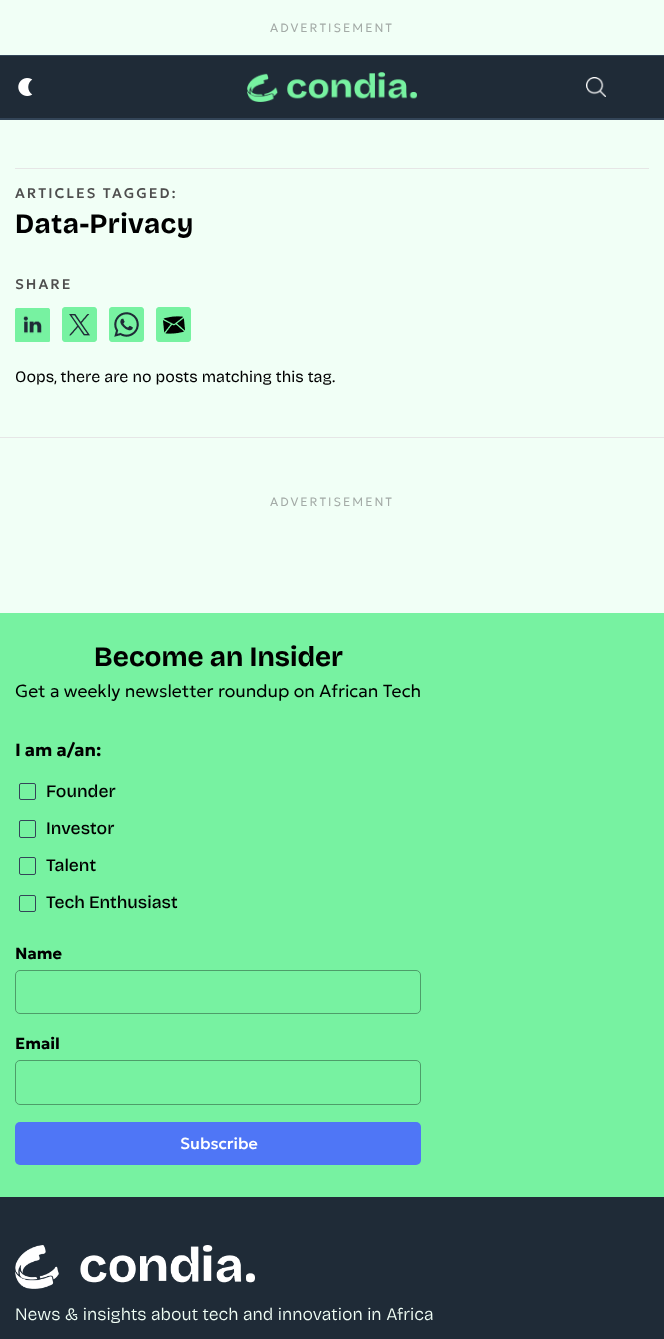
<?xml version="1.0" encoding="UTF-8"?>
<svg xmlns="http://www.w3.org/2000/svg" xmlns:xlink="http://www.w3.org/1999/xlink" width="664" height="1339">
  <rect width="100%" height="100%" fill="#f1fff6" />
  <rect y="56" width="664" height="62" fill="#1f2b37" />
  <rect y="55" width="664" height="1" fill="#334558" />
  <rect y="118" width="664" height="2" fill="#334558" />
  <image x="18" y="78" width="15" height="18" xlink:href="image1.png" />
  <image x="247" y="72" width="170" height="30" xlink:href="image2.png" />
  <image x="586" y="77" width="20" height="20" xlink:href="image3.png" />
  <rect x="15" y="168" width="634" height="1" fill="#e6e6e6" />
  <image x="15" y="308" width="35" height="34" xlink:href="image4.png" />
  <image x="62" y="307" width="35" height="35" xlink:href="image5.png" />
  <image x="109" y="307" width="35" height="35" xlink:href="image6.png" />
  <image x="156" y="307" width="35" height="35" xlink:href="image7.png" />
  <rect y="437" width="664" height="1" fill="#e6e6e6" />
  <rect y="613" width="664" height="584" fill="#77f2a1" />
  <rect x="19.5" y="783.5" width="16" height="16" rx="1.5" fill="none" stroke="#334558" />
  <rect x="19.5" y="820.5" width="16" height="17" rx="1.5" fill="none" stroke="#334558" />
  <rect x="19.5" y="857.5" width="16" height="17" rx="1.5" fill="none" stroke="#334558" />
  <rect x="19.5" y="895.5" width="16" height="16" rx="1.5" fill="none" stroke="#334558" />
  <rect x="15.5" y="970.5" width="405" height="43" rx="4.5" fill="none" stroke="#4d9d69" />
  <rect x="15.5" y="1060.5" width="405" height="44" rx="4.5" fill="none" stroke="#4d9d69" />
  <rect x="15" y="1122" width="406" height="43" rx="5" fill="#4f76f6" />
  <rect y="1197" width="664" height="142" fill="#1f2b37" />
  <image x="15" y="1245" width="240" height="44" xlink:href="image8.png" />
  <text x="270" y="32" style="font-family: Geologica; font-size: 12px; font-weight: 300; letter-spacing: 2px; fill: #a4aba7">ADVERTISEMENT</text>
  <text x="15" y="198" style="font-family: Geologica; font-size: 14px; font-weight: 500; letter-spacing: 2px; fill: #4e4e4e">ARTICLES TAGGED:</text>
  <text x="15" y="233" style="font-family: Bricolage Grotesque; font-size: 28px; font-weight: bold; letter-spacing: 0.5px; fill: #000000">Data-Privacy</text>
  <text x="15" y="289" style="font-family: Geologica; font-size: 14px; font-weight: 500; letter-spacing: 2px; fill: #4e4e4e">SHARE</text>
  <text x="15" y="382" style="font-family: Bricolage Grotesque; font-size: 16px; fill: #000000">Oops, there are no posts matching this tag.</text>
  <text x="270" y="506" style="font-family: Geologica; font-size: 12px; font-weight: 300; letter-spacing: 2px; fill: #a4aba7">ADVERTISEMENT</text>
  <text x="94" y="666" style="font-family: Bricolage Grotesque; font-size: 28px; font-weight: bold; fill: #000000">Become an Insider</text>
  <text x="15" y="697" style="font-family: Geologica; font-size: 17.6px; font-weight: 300; fill: #000000">Get a weekly newsletter roundup on African Tech</text>
  <text x="15" y="756" style="font-family: Geologica; font-size: 17.6px; font-weight: bold; fill: #000000">I am a/an:</text>
  <text x="46" y="797" style="font-family: Bricolage Grotesque; font-size: 17.6px; font-weight: 500; fill: #000000">Founder</text>
  <text x="46" y="834" style="font-family: Bricolage Grotesque; font-size: 17.6px; font-weight: 500; fill: #000000">Investor</text>
  <text x="46" y="871" style="font-family: Bricolage Grotesque; font-size: 17.6px; font-weight: 500; fill: #000000">Talent</text>
  <text x="46" y="908" style="font-family: Bricolage Grotesque; font-size: 17.6px; font-weight: 500; fill: #000000">Tech Enthusiast</text>
  <text x="15" y="959" style="font-family: Geologica; font-size: 16px; font-weight: bold; fill: #000000">Name</text>
  <text x="15" y="1049" style="font-family: Geologica; font-size: 16px; font-weight: bold; fill: #000000">Email</text>
  <text x="180" y="1149" style="font-family: Geologica; font-size: 16px; font-weight: 500; fill: #ffffff">Subscribe</text>
  <text x="15" y="1320" style="font-family: Bricolage Grotesque; font-size: 17.6px; font-weight: 300; fill: #f1fff6">News &amp; insights about tech and innovation in Africa</text>
</svg>
